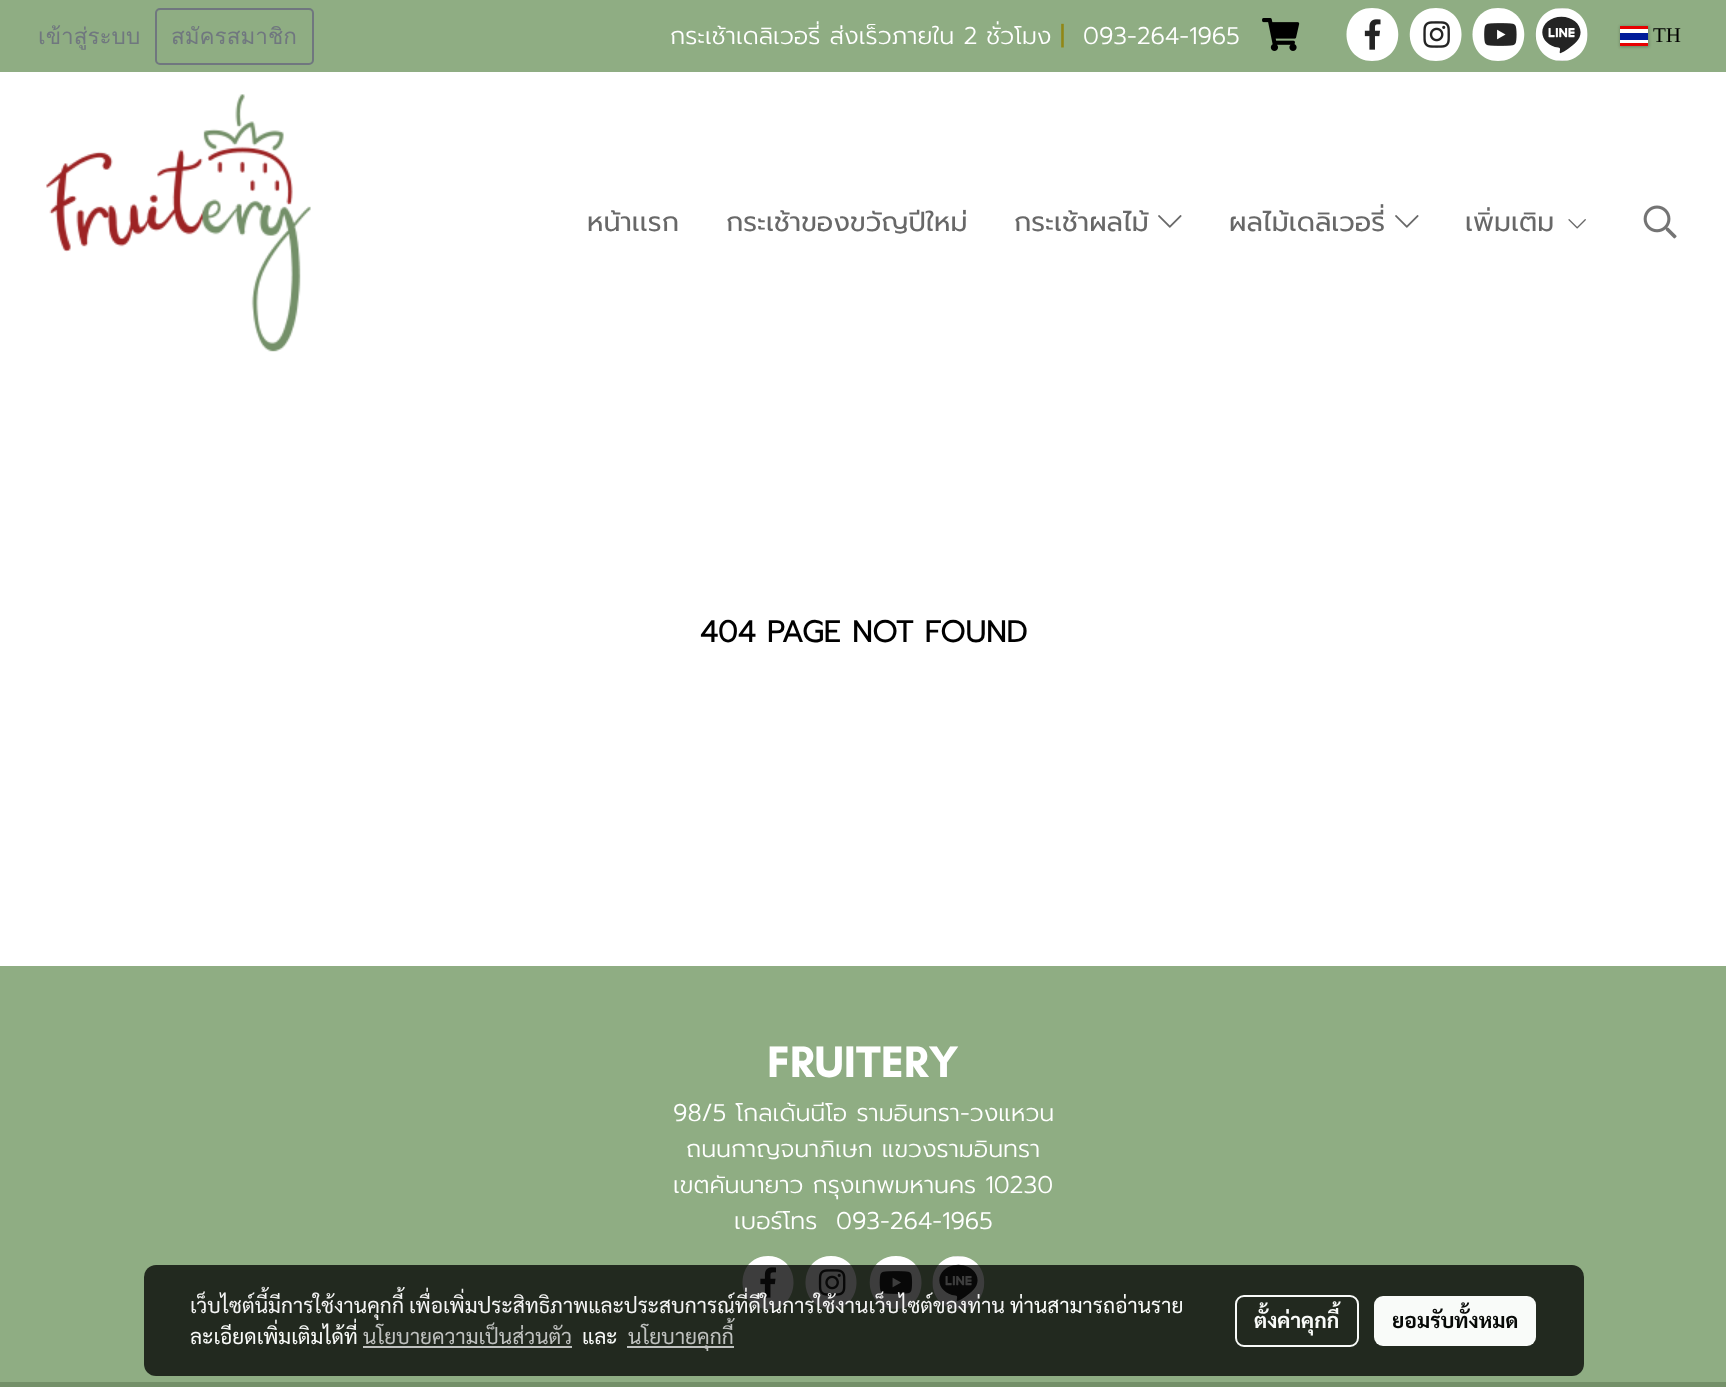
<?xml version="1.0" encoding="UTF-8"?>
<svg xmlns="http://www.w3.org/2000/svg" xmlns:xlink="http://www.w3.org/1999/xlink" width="1726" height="1387">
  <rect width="100%" height="100%" fill="#ffffff" />
  <rect width="1726" height="72" fill="#8fad83" />
  <rect x="156" y="9" width="157" height="55" rx="4" fill="none" stroke="#70777f" stroke-width="2" />
  <image x="1262" y="18" width="38" height="33" xlink:href="image1.png" />
  <path d="M 1372 8 c -34 0 -34 53 0 53 c 35 0 35 -53 0 -53 z" fill="#ffffff" />
  <image x="1364" y="19" width="17" height="31" xlink:href="image2.png" />
  <path d="M 1436 8 c -35 0 -35 53 0 53 c 34 0 34 -53 0 -53 z" fill="#ffffff" />
  <image x="1423" y="21" width="27" height="27" xlink:href="image3.png" />
  <path d="M 1498 8 c -34 0 -34 53 0 53 c 35 0 35 -53 0 -53 z" fill="#ffffff" />
  <image x="1484" y="23" width="33" height="23" xlink:href="image4.png" />
  <path d="M 1562 8 c -35 0 -35 53 0 53 c 34 0 34 -53 0 -53 z" fill="#ffffff" />
  <image x="1535" y="8" width="53" height="53" xlink:href="image5.png" />
  <rect x="1620" y="26" width="29" height="21" fill="#000000" fill-opacity="0.25" filter="blur(1.5px)" />
  <rect x="1620" y="29" width="28" height="14" fill="#ffffff" />
  <rect x="1620" y="33" width="28" height="7" fill="#001b9a" />
  <rect x="1620" y="26" width="28" height="3" fill="#e70000" />
  <rect x="1620" y="43" width="28" height="3" fill="#e70000" />
  <image x="46" y="94" width="265" height="258" xlink:href="image6.png" />
  <image x="1158" y="215" width="24" height="13" xlink:href="image7.png" />
  <image x="1395" y="215" width="24" height="13" xlink:href="image7.png" />
  <image x="1568" y="219" width="18" height="10" xlink:href="image8.png" />
  <image x="1643" y="205" width="34" height="34" xlink:href="image9.png" />
  <rect y="966" width="1726" height="416" fill="#8fad83" />
  <path d="M 768 1256 c -34 0 -34 53 0 53 c 34 0 34 -53 0 -53 z" fill="#ffffff" />
  <image x="760" y="1267" width="16" height="31" xlink:href="image10.png" />
  <path d="M 831 1256 c -34 0 -34 53 0 53 c 34 0 34 -53 0 -53 z" fill="#ffffff" />
  <image x="818" y="1269" width="28" height="27" xlink:href="image11.png" />
  <path d="M 896 1256 c -35 0 -35 53 0 53 c 34 0 34 -53 0 -53 z" fill="#ffffff" />
  <image x="879" y="1271" width="34" height="23" xlink:href="image12.png" />
  <path d="M 958 1256 c -34 0 -34 53 0 53 c 35 0 35 -53 0 -53 z" fill="#ffffff" />
  <image x="932" y="1256" width="53" height="53" xlink:href="image13.png" />
  <rect y="1382" width="1726" height="5" fill="#749069" />
  <rect x="144" y="1265" width="1440" height="111" rx="12" fill="#000000" fill-opacity="0.76" />
  <rect x="363" y="1346" width="209" height="2" fill="#bfc1bf" />
  <rect x="627" y="1346" width="107" height="2" fill="#bfc1bf" />
  <rect x="1236" y="1296" width="122" height="50" rx="8" fill="none" stroke="#f9fbf9" stroke-width="2" />
  <rect x="1374" y="1296" width="162" height="50" rx="9" fill="#f9fbf9" />
  <text x="38" y="44" style="font-family: Loma; font-size: 22.5px; fill: #70777f">เข้าสู่ระบบ</text>
  <text x="171" y="44" style="font-family: Loma; font-size: 22.5px; fill: #70777f">สมัครสมาชิก</text>
  <text x="670" y="44" style="font-family: Prompt; font-size: 24px; font-weight: 300; fill: #ffffff">กระเช้าเดลิเวอรี่ ส่งเร็วภายใน 2 ชั่วโมง</text>
  <text x="1060" y="44" style="font-family: Prompt; font-size: 24px; font-weight: bold; fill: #918716">|</text>
  <text x="1083" y="44" style="font-family: Prompt; font-size: 24px; font-weight: 300; fill: #ffffff">093-264-1965</text>
  <text x="1653" y="42" style="font-family: Liberation Serif; font-size: 21px; fill: #000000">TH</text>
  <text x="587" y="231" style="font-family: Prompt; font-size: 27px; fill: #686868">หน้าเเรก</text>
  <text x="726" y="231" style="font-family: Prompt; font-size: 27px; fill: #686868">กระเช้าของขวัญปีใหม่</text>
  <text x="1014" y="231" style="font-family: Prompt; font-size: 27px; fill: #686868">กระเช้าผลไม้</text>
  <text x="1229" y="231" style="font-family: Prompt; font-size: 27px; fill: #686868">ผลไม้เดลิเวอรี่</text>
  <text x="1465" y="231" style="font-family: Prompt; font-size: 27px; fill: #686868">เพิ่มเติม</text>
  <text x="700" y="642" style="font-family: Prompt; font-size: 30px; font-weight: bold; fill: #000000">404 PAGE NOT FOUND</text>
  <text x="767" y="1077" style="font-family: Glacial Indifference; font-size: 45px; font-weight: bold; fill: #ffffff">FRUITERY</text>
  <text x="673" y="1121" style="font-family: Prompt; font-size: 24px; font-weight: 300; fill: #ffffff">98/5 โกลเด้นนีโอ รามอินทรา-วงแหวน</text>
  <text x="686" y="1157" style="font-family: Prompt; font-size: 24px; font-weight: 300; fill: #ffffff">ถนนกาญจนาภิเษก แขวงรามอินทรา</text>
  <text x="673" y="1193" style="font-family: Prompt; font-size: 24px; font-weight: 300; fill: #ffffff">เขตคันนายาว กรุงเทพมหานคร 10230</text>
  <text x="734" y="1229" style="font-family: Prompt; font-size: 24px; font-weight: 300; fill: #ffffff">เบอร์โทร</text>
  <text x="836" y="1229" style="font-family: Prompt; font-size: 24px; font-weight: 300; fill: #ffffff">093-264-1965</text>
  <text x="190" y="1313" style="font-family: Sarabun; font-size: 21px; fill: #f4f4f4">เว็บไซต์นี้มีการใช้งานคุกกี้ เพื่อเพิ่มประสิทธิภาพและประสบการณ์ที่ดีในการใช้งานเว็บไซต์ของท่าน</text>
  <text x="1010" y="1313" style="font-family: Sarabun; font-size: 21px; fill: #f9fbf9">ท่านสามารถอ่านราย</text>
  <text x="190" y="1344" style="font-family: Sarabun; font-size: 21px; fill: #f9fbf9">ละเอียดเพิ่มเติมได้ที่</text>
  <text x="363" y="1344" style="font-family: Sarabun; font-size: 21px; fill: #bfc1bf">นโยบายความเป็นส่วนตัว</text>
  <text x="582" y="1344" style="font-family: Sarabun; font-size: 21px; fill: #f9fbf9">และ</text>
  <text x="628" y="1344" style="font-family: Sarabun; font-size: 21px; fill: #bfc1bf">นโยบายคุกกี้</text>
  <text x="1254" y="1328" style="font-family: Sarabun; font-size: 21px; font-weight: bold; fill: #f9fbf9">ตั้งค่าคุกกี้</text>
  <text x="1392" y="1328" style="font-family: Sarabun; font-size: 21px; font-weight: bold; fill: #070907">ยอมรับทั้งหมด</text>
</svg>
